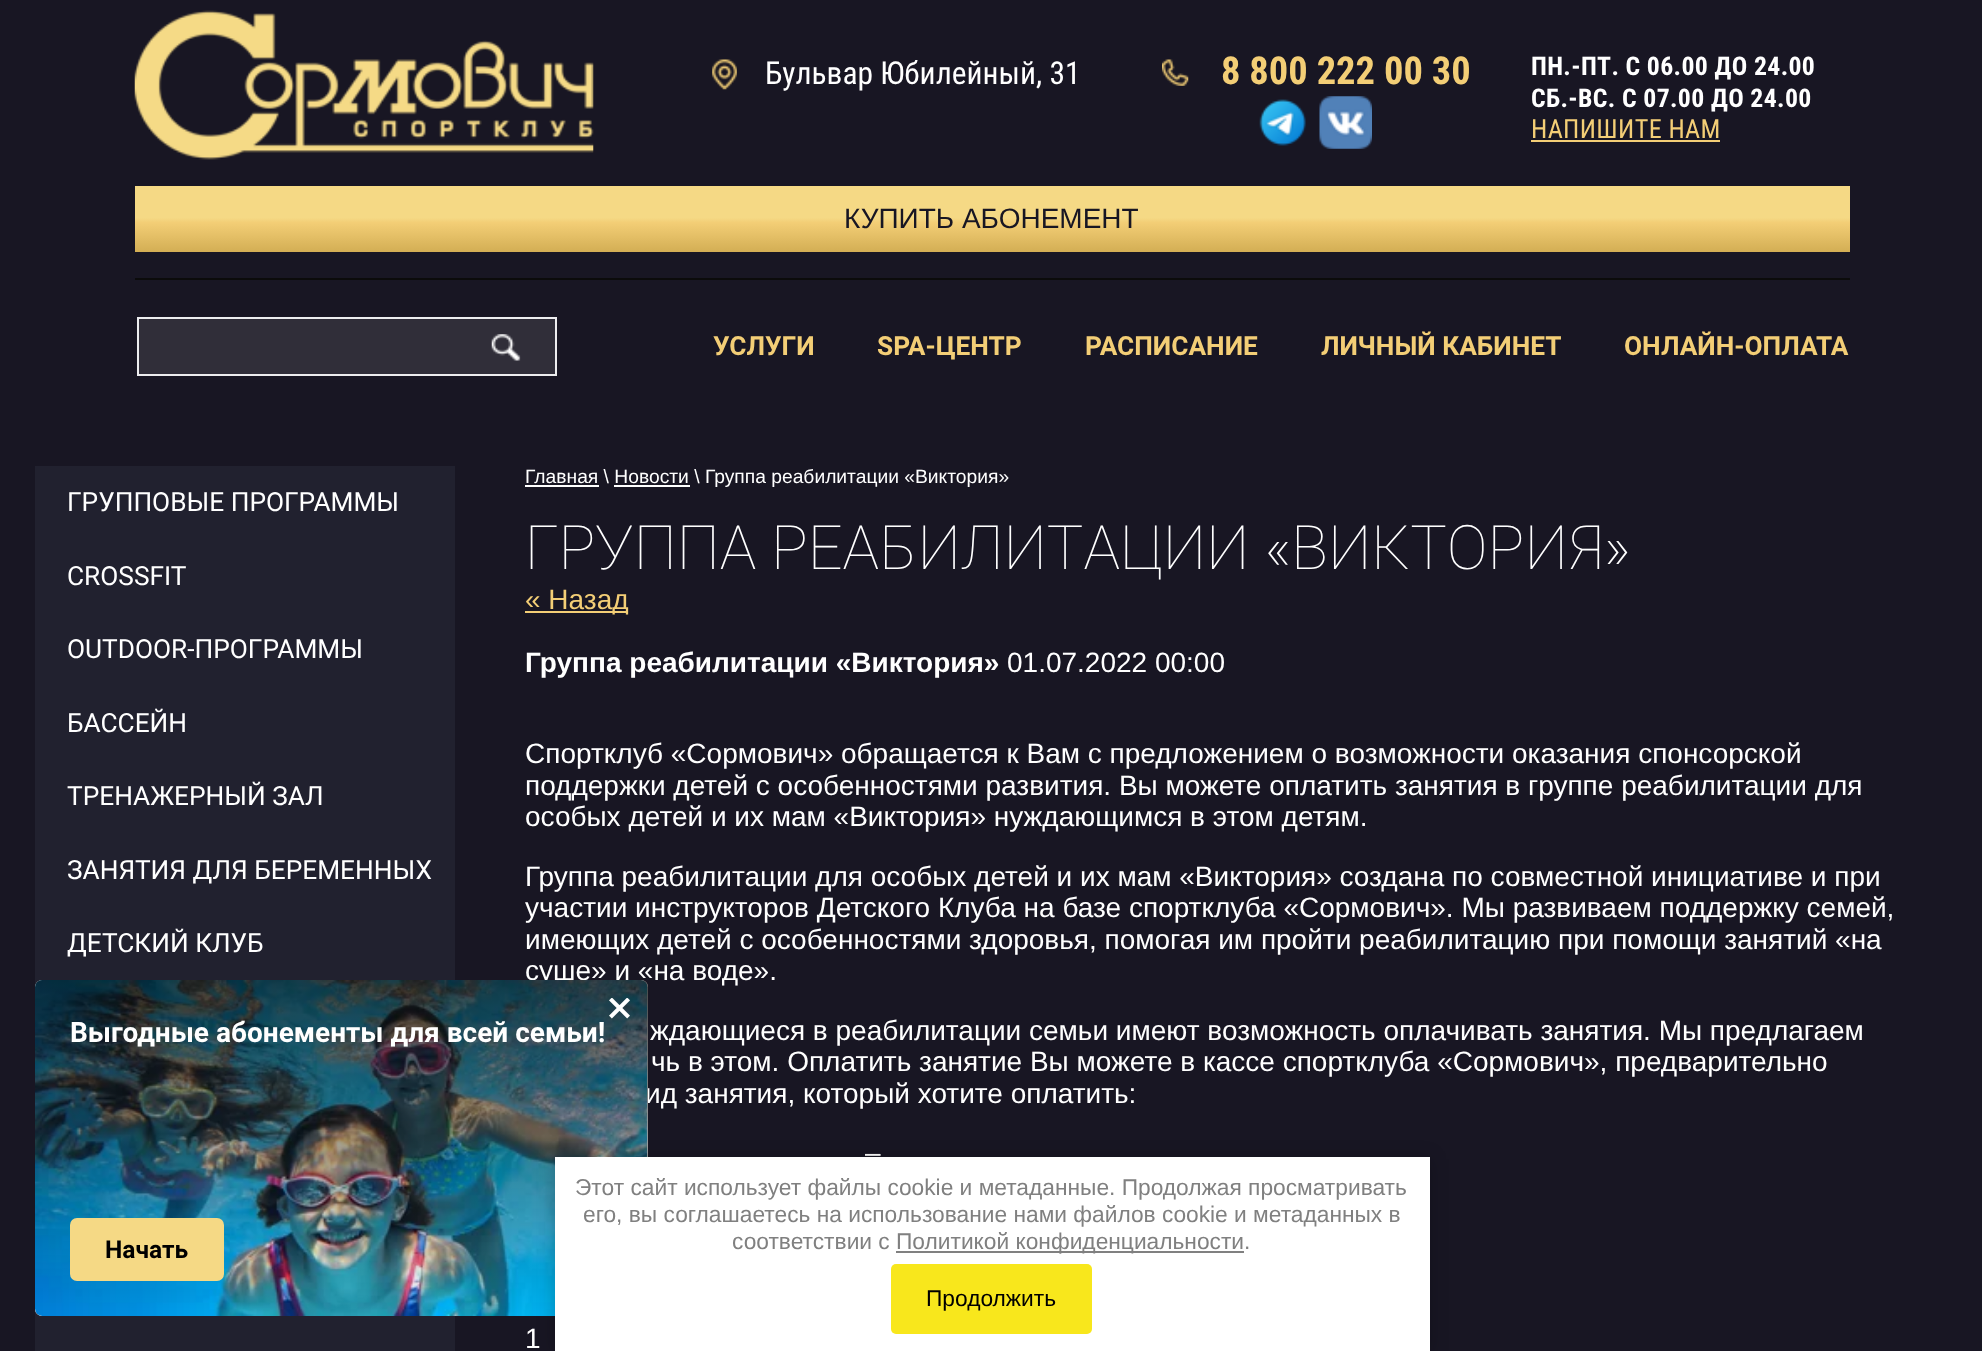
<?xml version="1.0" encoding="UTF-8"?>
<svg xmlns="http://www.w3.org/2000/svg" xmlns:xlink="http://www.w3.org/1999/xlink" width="1982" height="1351">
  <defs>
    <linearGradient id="g1" gradientUnits="userSpaceOnUse" x1="992" y1="185" x2="992" y2="252"><stop offset="0" stop-color="#f5d985" /><stop offset="0.49" stop-color="#f5d985" /><stop offset="0.56" stop-color="#f3ce76" /><stop offset="1" stop-color="#d3ae54" /></linearGradient>
    <linearGradient id="g2" gradientUnits="userSpaceOnUse" x1="341" y1="980" x2="341" y2="1316"><stop offset="0" stop-color="#000000" stop-opacity="0.7" /><stop offset="1" stop-color="#000000" stop-opacity="0" /></linearGradient>
  </defs>
  <rect width="100%" height="100%" fill="#181623" />
  <rect x="135" y="278" width="1715" height="2" fill="#0b0b0b" />
  <image x="134" y="10" width="460" height="150" xlink:href="image1.png" />
  <image x="712" y="59" width="25" height="31" xlink:href="image2.png" />
  <image x="1162" y="59" width="27" height="27" xlink:href="image3.png" />
  <image x="1259" y="99" width="47" height="47" xlink:href="image4.png" />
  <image x="1319" y="96" width="53" height="53" xlink:href="image5.png" />
  <rect x="1531" y="140" width="189" height="2" fill="#f3ce76" />
  <rect x="135" y="186" width="1715" height="66" fill="url(#g1)" />
  <rect x="138" y="318" width="418" height="57" fill="#302e39" stroke="#ededef" stroke-width="2" />
  <image x="491" y="334" width="30" height="27" xlink:href="image6.png" />
  <rect x="35" y="466" width="420" height="885" fill="#21212f" />
  <rect x="525" y="485" width="74" height="2" fill="#ffffff" />
  <rect x="614" y="485" width="76" height="2" fill="#ffffff" />
  <rect x="525" y="611" width="103" height="2" fill="#f3ce76" />
  <rect x="35" y="980" width="613" height="336" rx="7" fill="#ffffff" />
  <text x="765" y="84" style="font-family: Roboto Condensed; font-size: 31.5px; fill: #ffffff">Бульвар Юбилейный, 31</text>
  <text x="1221" y="84" style="font-family: Roboto Condensed; font-size: 38.5px; font-weight: bold; fill: #f3ce76">8 800 222 00 30</text>
  <text x="1531" y="75" style="font-family: Roboto Condensed; font-size: 25.75px; font-weight: bold; letter-spacing: 0.35px; fill: #ffffff">ПН.-ПТ. С 06.00 ДО 24.00</text>
  <text x="1531" y="107" style="font-family: Roboto Condensed; font-size: 25.75px; font-weight: bold; letter-spacing: 0.35px; fill: #ffffff">СБ.-ВС. С 07.00 ДО 24.00</text>
  <text x="1531" y="138" style="font-family: Roboto Condensed; font-size: 26.25px; letter-spacing: 0.35px; fill: #f3ce76">НАПИШИТЕ НАМ</text>
  <text x="844" y="228" style="font-family: Liberation Sans; font-size: 28px; fill: #181623">КУПИТЬ АБОНЕМЕНТ</text>
  <text x="713" y="355" style="font-family: Roboto; font-size: 26.25px; font-weight: bold; fill: #f3ce76">УСЛУГИ</text>
  <text x="877" y="355" style="font-family: Roboto; font-size: 26.25px; font-weight: bold; fill: #f3ce76">SPA-ЦЕНТР</text>
  <text x="1085" y="355" style="font-family: Roboto; font-size: 26.25px; font-weight: bold; fill: #f3ce76">РАСПИСАНИЕ</text>
  <text x="1321" y="355" style="font-family: Roboto; font-size: 26.25px; font-weight: bold; fill: #f3ce76">ЛИЧНЫЙ КАБИНЕТ</text>
  <text x="1624" y="355" style="font-family: Roboto; font-size: 26.25px; font-weight: bold; fill: #f3ce76">ОНЛАЙН-ОПЛАТА</text>
  <text x="67" y="511" style="font-family: Roboto; font-size: 26.25px; fill: #ffffff">ГРУППОВЫЕ ПРОГРАММЫ</text>
  <text x="67" y="585" style="font-family: Roboto; font-size: 26.25px; fill: #ffffff">CROSSFIT</text>
  <text x="67" y="658" style="font-family: Roboto; font-size: 26.25px; fill: #ffffff">OUTDOOR-ПРОГРАММЫ</text>
  <text x="67" y="732" style="font-family: Roboto; font-size: 26.25px; fill: #ffffff">БАССЕЙН</text>
  <text x="67" y="805" style="font-family: Roboto; font-size: 26.25px; fill: #ffffff">ТРЕНАЖЕРНЫЙ ЗАЛ</text>
  <text x="67" y="879" style="font-family: Roboto; font-size: 26.25px; fill: #ffffff">ЗАНЯТИЯ ДЛЯ БЕРЕМЕННЫХ</text>
  <text x="67" y="952" style="font-family: Roboto; font-size: 26.25px; fill: #ffffff">ДЕТСКИЙ КЛУБ</text>
  <text x="525" y="483" style="font-family: Liberation Sans; font-size: 19.25px; fill: #ffffff">Главная \ Новости \ Группа реабилитации «Виктория»</text>
  <text x="525" y="569" style="font-family: Roboto; font-size: 61.25px; font-weight: 200; fill: #ffffff">ГРУППА РЕАБИЛИТАЦИИ «ВИКТОРИЯ»</text>
  <text x="525" y="609" style="font-family: Liberation Sans; font-size: 28px; fill: #f3ce76">« Назад</text>
  <text x="525" y="672" style="font-family: Liberation Sans; font-size: 28px; font-weight: bold; fill: #ffffff">Группа реабилитации «Виктория»</text>
  <text x="1007" y="672" style="font-family: Liberation Sans; font-size: 28px; fill: #ffffff">01.07.2022 00:00</text>
  <text x="525" y="763" style="font-family: Liberation Sans; font-size: 28px; fill: #ffffff">Спортклуб «Сормович» обращается к Вам с предложением о возможности оказания спонсорской</text>
  <text x="525" y="795" style="font-family: Liberation Sans; font-size: 28px; fill: #ffffff">поддержки детей с особенностями развития. Вы можете оплатить занятия в группе реабилитации для</text>
  <text x="525" y="826" style="font-family: Liberation Sans; font-size: 28px; fill: #ffffff">особых детей и их мам «Виктория» нуждающимся в этом детям.</text>
  <text x="525" y="886" style="font-family: Liberation Sans; font-size: 28px; fill: #ffffff">Группа реабилитации для особых детей и их мам «Виктория» создана по совместной инициативе и при</text>
  <text x="525" y="917" style="font-family: Liberation Sans; font-size: 28px; fill: #ffffff">участии инструкторов Детского Клуба на базе спортклуба «Сормович». Мы развиваем поддержку семей,</text>
  <text x="525" y="949" style="font-family: Liberation Sans; font-size: 28px; fill: #ffffff">имеющих детей с особенностями здоровья, помогая им пройти реабилитацию при помощи занятий «на</text>
  <text x="525" y="980" style="font-family: Liberation Sans; font-size: 28px; fill: #ffffff">суше» и «на воде».</text>
  <text x="650" y="1040" style="font-family: Liberation Sans; font-size: 28px; fill: #ffffff">ждающиеся в реабилитации семьи имеют возможность оплачивать занятия. Мы предлагаем</text>
  <text x="651" y="1071" style="font-family: Liberation Sans; font-size: 28px; fill: #ffffff">чь в этом. Оплатить занятие Вы можете в кассе спортклуба «Сормович», предварительно</text>
  <text x="645" y="1103" style="font-family: Liberation Sans; font-size: 28px; fill: #ffffff">ид занятия, который хотите оплатить:</text>
  <text x="865" y="1162" style="font-family: Liberation Sans; font-size: 28px; fill: #ffffff">–</text>
  <text x="525" y="1348" style="font-family: Liberation Sans; font-size: 28px; fill: #ffffff">1</text>
  <image x="35" y="980" width="613" height="336" xlink:href="image8.png" />
  <rect x="35" y="980" width="613" height="336" rx="7" fill="url(#g2)" />
  <image x="609" y="998" width="21" height="21" xlink:href="image7.png" />
  <text x="70" y="1042" style="font-family: Roboto; font-size: 28px; font-weight: bold; fill: #ffffff">Выгодные абонементы для всей семьи!</text>
  <rect x="70" y="1218" width="154" height="63" rx="7" fill="#f5d985" />
  <text x="105" y="1258" style="font-family: Roboto; font-size: 24.5px; font-weight: bold; fill: #000000">Начать</text>
  <rect x="555" y="1159" width="875" height="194" fill="#000000" fill-opacity="0.23" filter="blur(9px)" />
  <rect x="555" y="1157" width="875" height="194" fill="#ffffff" />
  <text x="575" y="1195" style="font-family: Liberation Sans; font-size: 22.75px; fill: #808080">Этот сайт использует файлы cookie и метаданные. Продолжая просматривать</text>
  <text x="583" y="1222" style="font-family: Liberation Sans; font-size: 22.75px; fill: #808080">его, вы соглашаетесь на использование нами файлов cookie и метаданных в</text>
  <text x="732" y="1249" style="font-family: Liberation Sans; font-size: 22.75px; fill: #808080">соответствии с</text>
  <rect x="896" y="1251" width="348" height="2" fill="#808080" />
  <text x="896" y="1249" style="font-family: Liberation Sans; font-size: 22.75px; fill: #808080">Политикой конфиденциальности.</text>
  <rect x="891" y="1264" width="201" height="70" rx="5" fill="#f8e71c" />
  <text x="926" y="1306" style="font-family: Liberation Sans; font-size: 22.75px; fill: #000000">Продолжить</text>
</svg>
